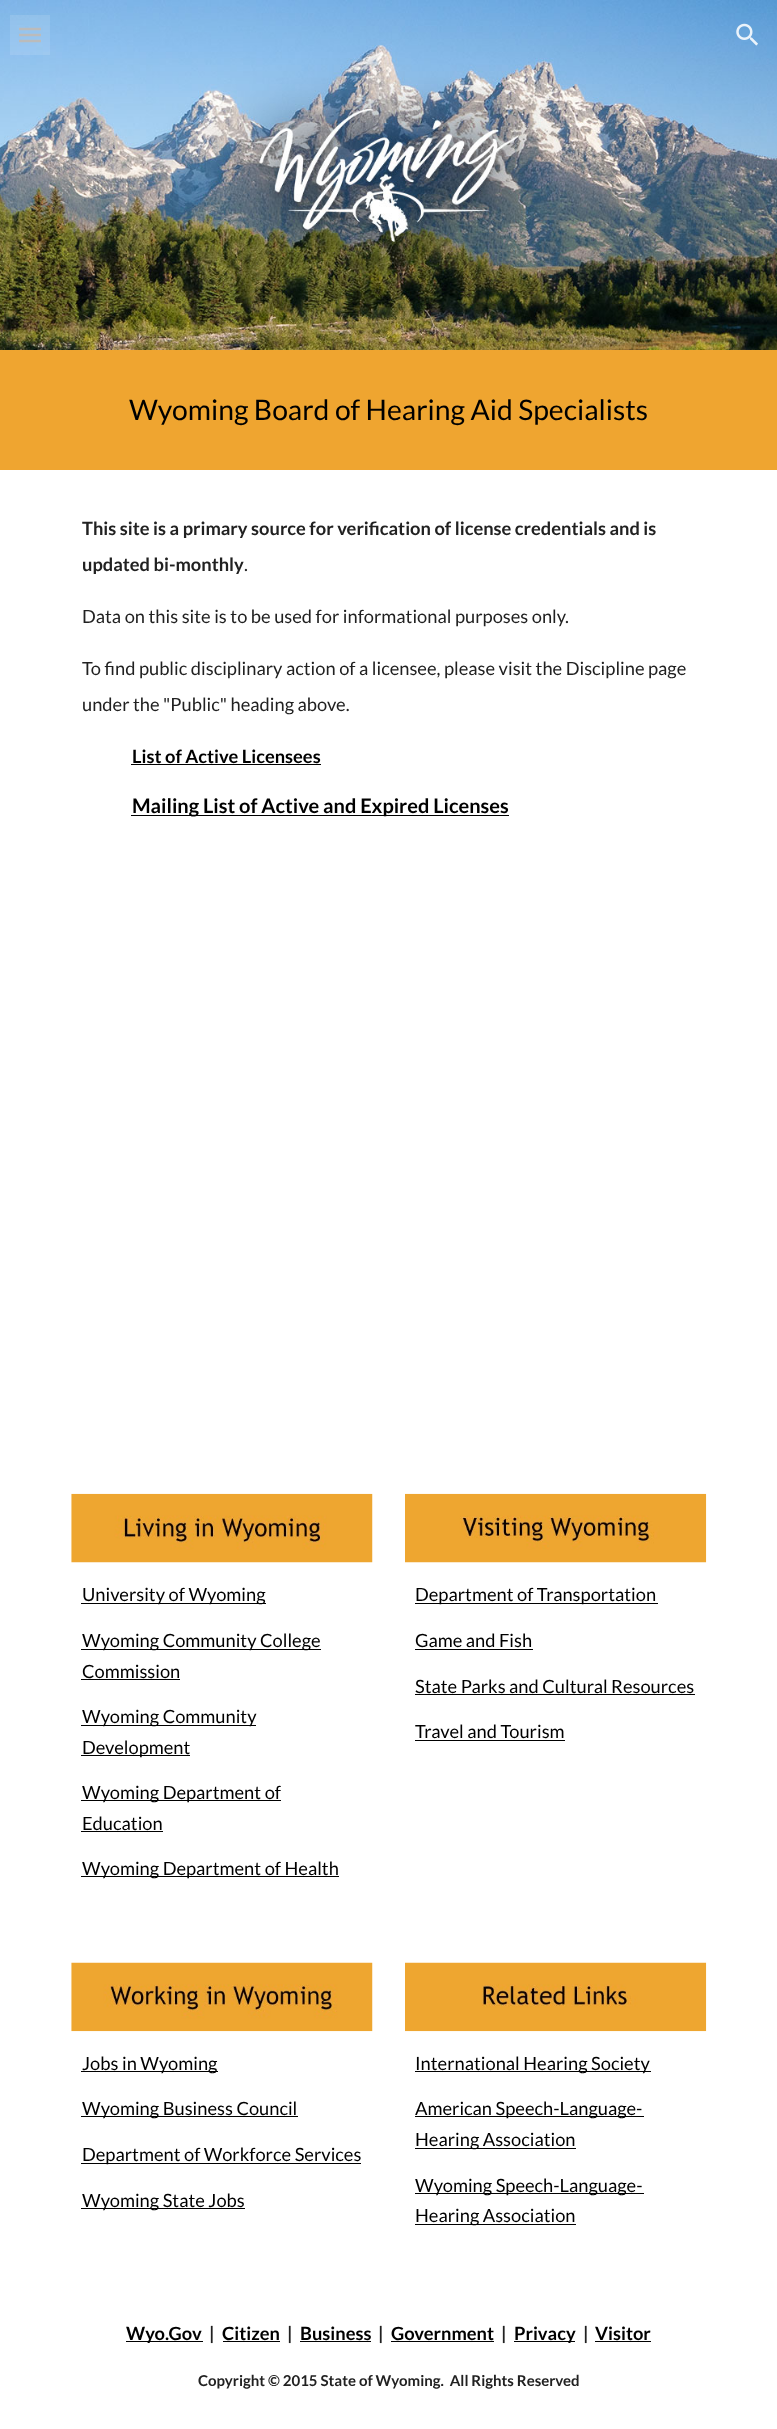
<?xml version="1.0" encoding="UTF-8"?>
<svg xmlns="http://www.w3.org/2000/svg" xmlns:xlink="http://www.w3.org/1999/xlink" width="777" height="2429">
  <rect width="100%" height="100%" fill="#ffffff" />
  <image x="0" y="0" width="777" height="350" xlink:href="image2.png" />
  <path d="M 19 29 h 22 m -22 6 h 22 m -22 6 h 22" fill="none" stroke="#b2b2b2" stroke-width="2.5" />
  <rect x="10" y="15" width="40" height="40" fill="#ffffff" fill-opacity="0.12" />
  <image x="736" y="23" width="22" height="23" xlink:href="image1.png" />
  <rect y="350" width="777" height="120" fill="#efa530" />
  <rect x="131" y="764" width="190" height="1" fill="#000000" />
  <rect x="131" y="815" width="378" height="1" fill="#000000" />
  <image x="71" y="1493" width="302" height="70" xlink:href="image3.png" />
  <rect x="81" y="1603" width="185" height="1" fill="#000000" />
  <rect x="81" y="1649" width="240" height="1" fill="#000000" />
  <rect x="81" y="1679" width="99" height="1" fill="#000000" />
  <rect x="81" y="1725" width="175" height="1" fill="#000000" />
  <rect x="81" y="1755" width="109" height="1" fill="#000000" />
  <rect x="81" y="1800" width="200" height="1" fill="#000000" />
  <rect x="81" y="1831" width="82" height="1" fill="#000000" />
  <rect x="81" y="1876" width="258" height="1" fill="#000000" />
  <image x="405" y="1493" width="302" height="70" xlink:href="image4.png" />
  <rect x="415" y="1603" width="243" height="1" fill="#000000" />
  <rect x="415" y="1649" width="118" height="1" fill="#000000" />
  <rect x="415" y="1694" width="280" height="1" fill="#000000" />
  <rect x="415" y="1740" width="150" height="1" fill="#000000" />
  <image x="71" y="1962" width="302" height="70" xlink:href="image5.png" />
  <rect x="81" y="2071" width="137" height="1" fill="#000000" />
  <rect x="81" y="2116" width="217" height="1" fill="#000000" />
  <rect x="81" y="2163" width="280" height="1" fill="#000000" />
  <rect x="81" y="2208" width="164" height="1" fill="#000000" />
  <image x="405" y="1962" width="302" height="70" xlink:href="image6.png" />
  <rect x="415" y="2071" width="236" height="1" fill="#000000" />
  <rect x="415" y="2116" width="229" height="1" fill="#000000" />
  <rect x="415" y="2148" width="161" height="1" fill="#000000" />
  <rect x="415" y="2193" width="229" height="1" fill="#000000" />
  <rect x="415" y="2224" width="161" height="1" fill="#000000" />
  <rect x="126" y="2341" width="77" height="1" fill="#000000" />
  <rect x="223" y="2341" width="57" height="1" fill="#000000" />
  <rect x="300" y="2341" width="71" height="1" fill="#000000" />
  <rect x="391" y="2341" width="103" height="1" fill="#000000" />
  <rect x="514" y="2341" width="61" height="1" fill="#000000" />
  <rect x="595" y="2341" width="56" height="1" fill="#000000" />
  <text x="129" y="420" style="font-family: Lato; font-size: 28.3px; fill: #000000">Wyoming Board of Hearing Aid Specialists</text>
  <text x="82" y="535" style="font-family: Lato; font-size: 18.3px; font-weight: bold; fill: #212121">This site is a primary source for verification of license credentials and is</text>
  <text x="82" y="571" style="font-family: Lato; font-size: 18.3px; font-weight: bold; fill: #212121">updated bi-monthly</text>
  <text x="244" y="571" style="font-family: Lato; font-size: 18.3px; fill: #212121">.</text>
  <text x="82" y="623" style="font-family: Lato; font-size: 18.3px; fill: #212121">Data on this site is to be used for informational purposes only.</text>
  <text x="82" y="675" style="font-family: Lato; font-size: 18.3px; fill: #212121">To find public disciplinary action of a licensee, please visit the Discipline page</text>
  <text x="82" y="711" style="font-family: Lato; font-size: 18.3px; fill: #212121">under the "Public" heading above.</text>
  <text x="132" y="763" style="font-family: Lato; font-size: 18.3px; font-weight: bold; fill: #000000">List of Active Licensees</text>
  <text x="132" y="813" style="font-family: Lato; font-size: 20px; font-weight: bold; fill: #000000">Mailing List of Active and Expired Licenses</text>
  <text x="82" y="1601" style="font-family: Lato; font-size: 18.3px; fill: #000000">University of Wyoming</text>
  <text x="82" y="1647" style="font-family: Lato; font-size: 18.3px; fill: #000000">Wyoming Community College</text>
  <text x="82" y="1678" style="font-family: Lato; font-size: 18.3px; fill: #000000">Commission</text>
  <text x="82" y="1723" style="font-family: Lato; font-size: 18.3px; fill: #000000">Wyoming Community</text>
  <text x="82" y="1754" style="font-family: Lato; font-size: 18.3px; fill: #000000">Development</text>
  <text x="82" y="1799" style="font-family: Lato; font-size: 18.3px; fill: #000000">Wyoming Department of</text>
  <text x="82" y="1830" style="font-family: Lato; font-size: 18.3px; fill: #000000">Education</text>
  <text x="82" y="1875" style="font-family: Lato; font-size: 18.3px; fill: #000000">Wyoming Department of Health</text>
  <text x="415" y="1601" style="font-family: Lato; font-size: 18.3px; fill: #000000">Department of Transportation</text>
  <text x="415" y="1647" style="font-family: Lato; font-size: 18.3px; fill: #000000">Game and Fish</text>
  <text x="415" y="1693" style="font-family: Lato; font-size: 18.3px; fill: #000000">State Parks and Cultural Resources</text>
  <text x="415" y="1738" style="font-family: Lato; font-size: 18.3px; fill: #000000">Travel and Tourism</text>
  <text x="82" y="2070" style="font-family: Lato; font-size: 18.3px; fill: #000000">Jobs in Wyoming</text>
  <text x="82" y="2115" style="font-family: Lato; font-size: 18.3px; fill: #000000">Wyoming Business Council</text>
  <text x="82" y="2161" style="font-family: Lato; font-size: 18.3px; fill: #000000">Department of Workforce Services</text>
  <text x="82" y="2207" style="font-family: Lato; font-size: 18.3px; fill: #000000">Wyoming State Jobs</text>
  <text x="415" y="2070" style="font-family: Lato; font-size: 18.3px; fill: #000000">International Hearing Society</text>
  <text x="415" y="2115" style="font-family: Lato; font-size: 18.3px; fill: #000000">American Speech-Language-</text>
  <text x="415" y="2146" style="font-family: Lato; font-size: 18.3px; fill: #000000">Hearing Association</text>
  <text x="415" y="2192" style="font-family: Lato; font-size: 18.3px; fill: #000000">Wyoming Speech-Language-</text>
  <text x="415" y="2222" style="font-family: Lato; font-size: 18.3px; fill: #000000">Hearing Association</text>
  <text x="126" y="2340" style="font-family: Lato; font-size: 18.3px; font-weight: bold; fill: #000000">Wyo.Gov</text>
  <text x="209" y="2340" style="font-family: Lato; font-size: 18.3px; font-weight: bold; fill: #212121">|</text>
  <text x="222" y="2340" style="font-family: Lato; font-size: 18.3px; font-weight: bold; fill: #000000">Citizen</text>
  <text x="287" y="2340" style="font-family: Lato; font-size: 18.3px; font-weight: bold; fill: #212121">|</text>
  <text x="300" y="2340" style="font-family: Lato; font-size: 18.3px; font-weight: bold; fill: #000000">Business</text>
  <text x="378" y="2340" style="font-family: Lato; font-size: 18.3px; font-weight: bold; fill: #212121">|</text>
  <text x="391" y="2340" style="font-family: Lato; font-size: 18.3px; font-weight: bold; fill: #000000">Government</text>
  <text x="501" y="2340" style="font-family: Lato; font-size: 18.3px; font-weight: bold; fill: #212121">|</text>
  <text x="514" y="2340" style="font-family: Lato; font-size: 18.3px; font-weight: bold; fill: #000000">Privacy</text>
  <text x="583" y="2340" style="font-family: Lato; font-size: 18.3px; font-weight: bold; fill: #212121">|</text>
  <text x="595" y="2340" style="font-family: Lato; font-size: 18.3px; font-weight: bold; fill: #000000">Visitor</text>
  <text x="198" y="2386" style="font-family: Lato; font-size: 15px; font-weight: bold; fill: #212121" xml:space="preserve">Copyright © 2015 State of Wyoming.  All Rights Reserved</text>
</svg>
